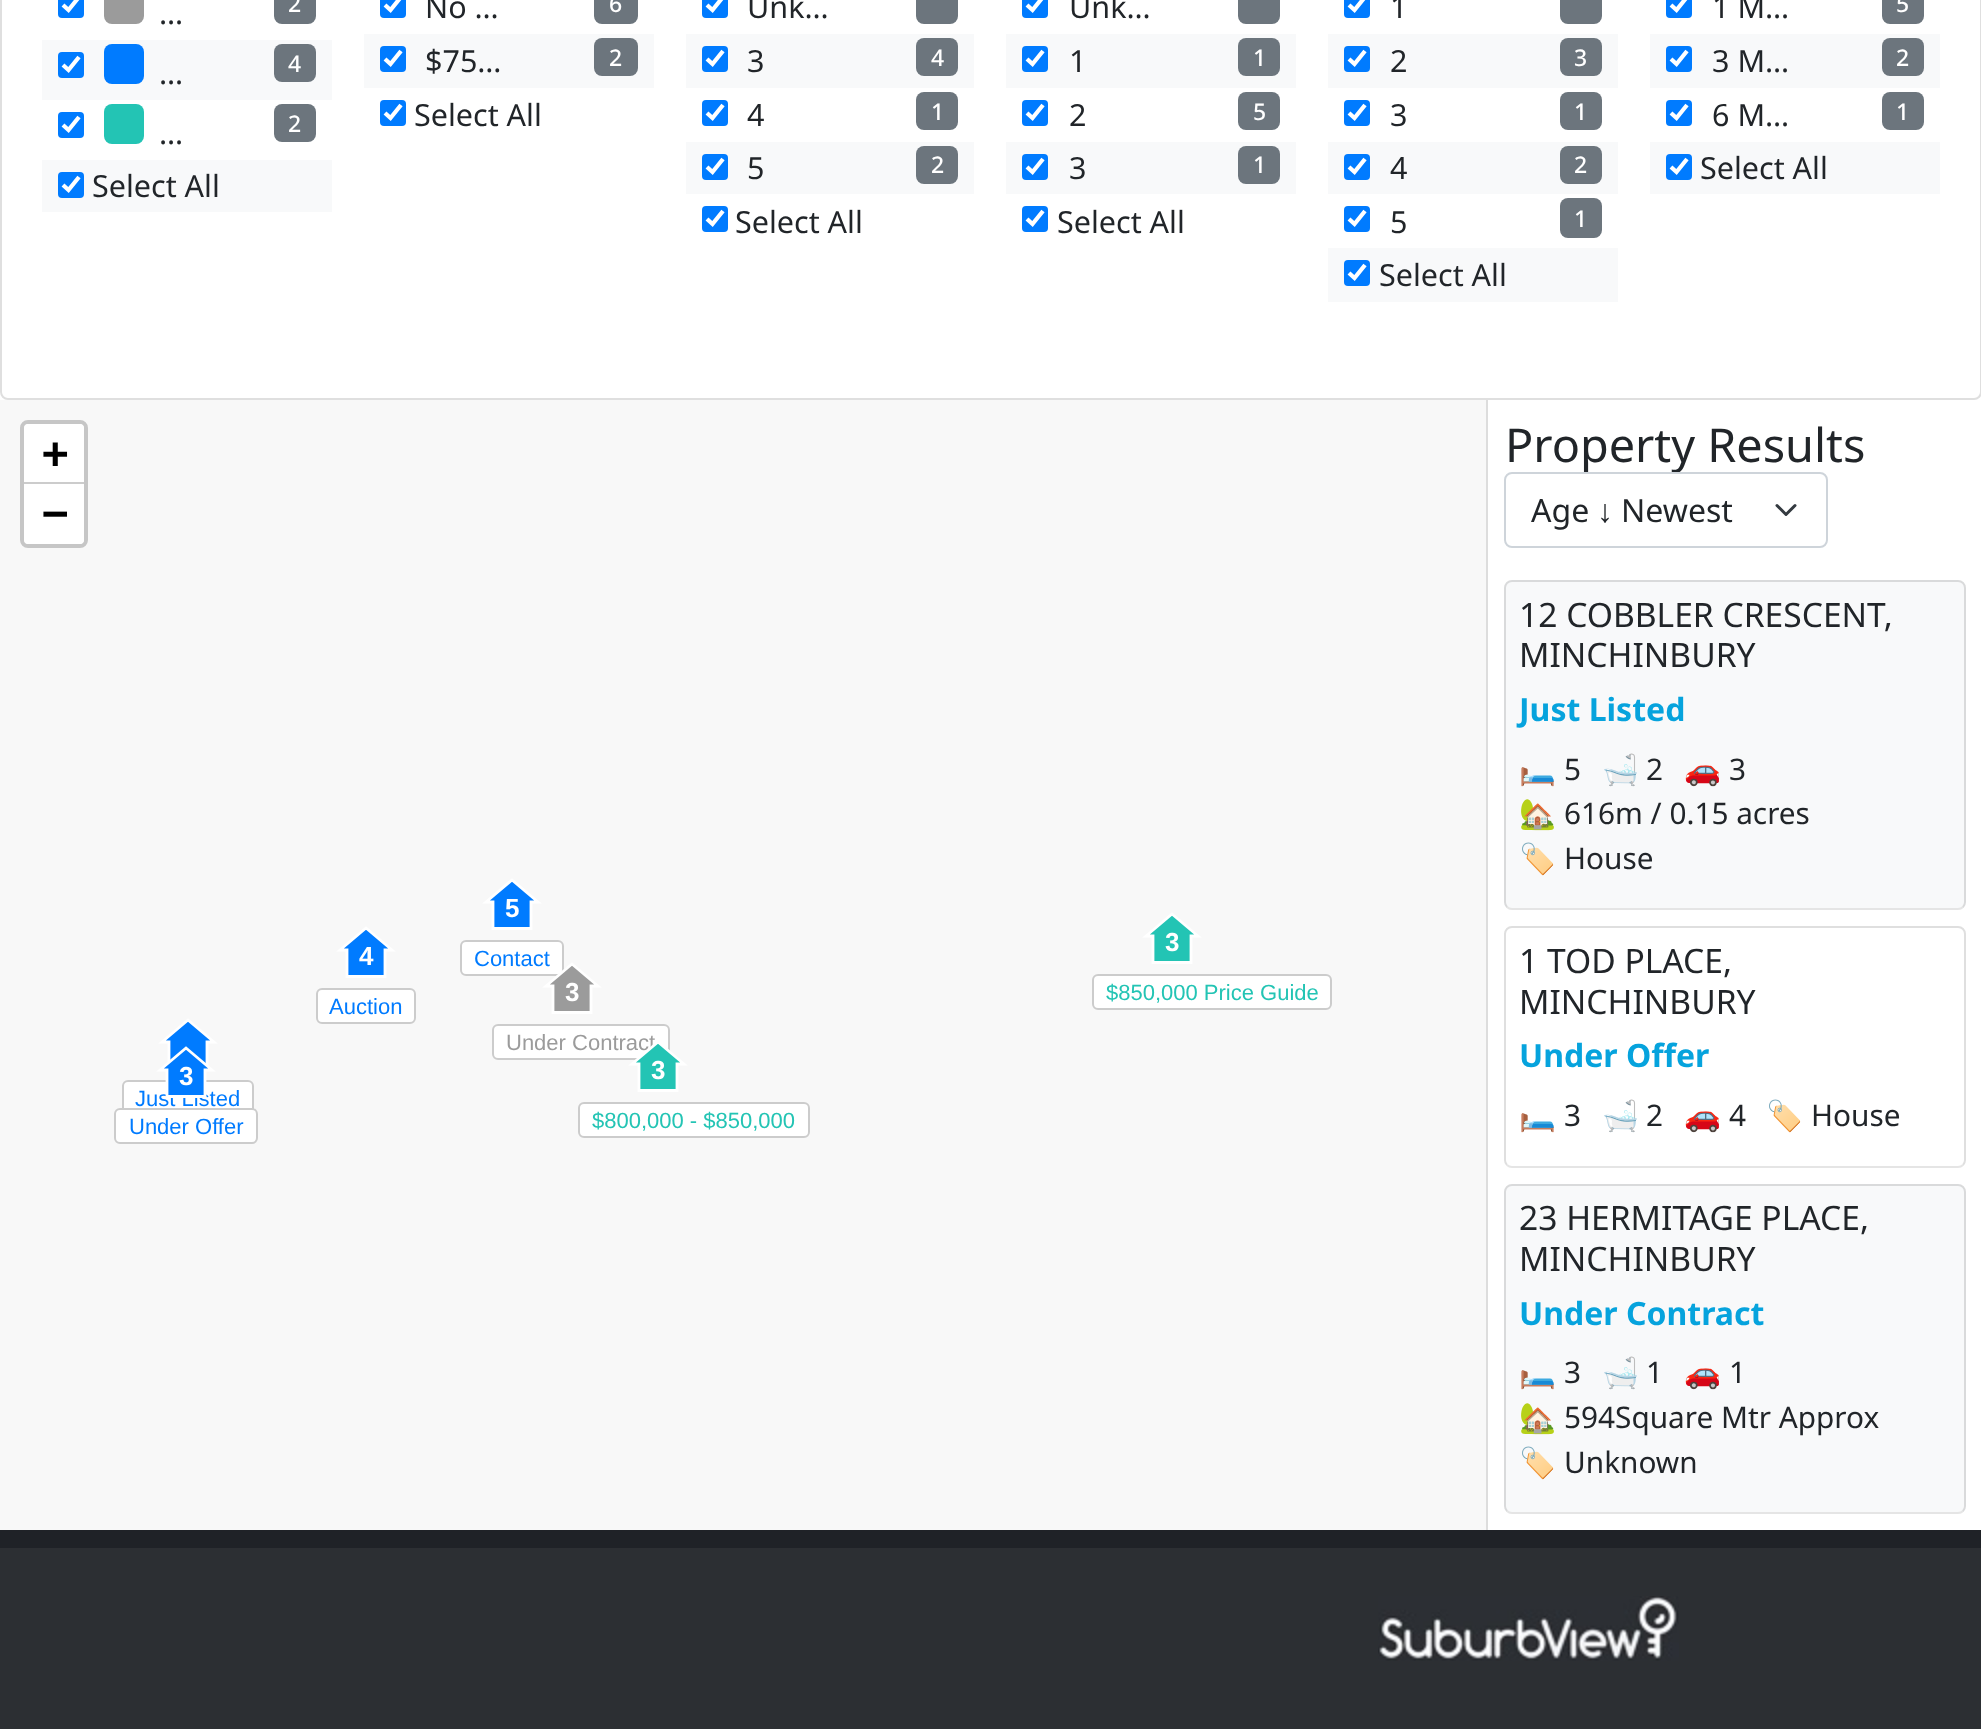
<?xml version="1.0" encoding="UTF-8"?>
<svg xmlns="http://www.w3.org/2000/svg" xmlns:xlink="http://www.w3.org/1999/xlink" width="1981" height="1729">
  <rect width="100%" height="100%" fill="#ffffff" />
  <rect x="1" y="-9" width="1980" height="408" rx="7" fill="none" stroke="#dfdfdf" stroke-width="2" />
  <rect x="58" y="-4" width="26" height="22" rx="4" fill="#007bff" />
  <path d="M 63 5 l 5.5 5 l 10.5 -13" fill="none" stroke="#ffffff" stroke-width="4.2" />
  <rect x="274" y="-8" width="42" height="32" rx="8" fill="#6c757d" />
  <rect x="104" y="-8" width="40" height="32" rx="8" fill="#9b9b9b" />
  <rect x="42" y="40" width="290" height="60" fill="#f8f9fa" />
  <rect x="58" y="52" width="26" height="26" rx="4" fill="#007bff" />
  <path d="M 63 65 l 5.5 5 l 10.5 -13" fill="none" stroke="#ffffff" stroke-width="4.2" />
  <rect x="274" y="44" width="42" height="38" rx="8" fill="#6c757d" />
  <rect x="104" y="44" width="40" height="40" rx="8" fill="#007bff" />
  <rect x="58" y="112" width="26" height="26" rx="4" fill="#007bff" />
  <path d="M 63 125 l 5.5 5 l 10.5 -13" fill="none" stroke="#ffffff" stroke-width="4.2" />
  <rect x="274" y="104" width="42" height="38" rx="8" fill="#6c757d" />
  <rect x="104" y="104" width="40" height="40" rx="8" fill="#23c4b4" />
  <rect x="42" y="160" width="290" height="52" fill="#f8f9fa" />
  <rect x="58" y="172" width="26" height="26" rx="4" fill="#007bff" />
  <path d="M 63 185 l 5.5 5 l 10.5 -13" fill="none" stroke="#ffffff" stroke-width="4.2" />
  <rect x="380" y="-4" width="26" height="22" rx="4" fill="#007bff" />
  <path d="M 385 5 l 5.5 5 l 10.5 -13" fill="none" stroke="#ffffff" stroke-width="4.2" />
  <rect x="594" y="-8" width="44" height="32" rx="8" fill="#6c757d" />
  <rect x="364" y="34" width="290" height="54" fill="#f8f9fa" />
  <rect x="380" y="46" width="26" height="26" rx="4" fill="#007bff" />
  <path d="M 385 59 l 5.5 5 l 10.5 -13" fill="none" stroke="#ffffff" stroke-width="4.2" />
  <rect x="594" y="38" width="44" height="38" rx="8" fill="#6c757d" />
  <rect x="380" y="100" width="26" height="26" rx="4" fill="#007bff" />
  <path d="M 385 113 l 5.5 5 l 10.5 -13" fill="none" stroke="#ffffff" stroke-width="4.2" />
  <rect x="702" y="-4" width="26" height="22" rx="4" fill="#007bff" />
  <path d="M 707 5 l 5.5 5 l 10.5 -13" fill="none" stroke="#ffffff" stroke-width="4.2" />
  <rect x="916" y="-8" width="42" height="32" rx="8" fill="#6c757d" />
  <rect x="686" y="34" width="288" height="54" fill="#f8f9fa" />
  <rect x="702" y="46" width="26" height="26" rx="4" fill="#007bff" />
  <path d="M 707 59 l 5.5 5 l 10.5 -13" fill="none" stroke="#ffffff" stroke-width="4.2" />
  <rect x="916" y="38" width="42" height="38" rx="8" fill="#6c757d" />
  <rect x="702" y="100" width="26" height="26" rx="4" fill="#007bff" />
  <path d="M 707 113 l 5.5 5 l 10.5 -13" fill="none" stroke="#ffffff" stroke-width="4.2" />
  <rect x="916" y="92" width="42" height="38" rx="8" fill="#6c757d" />
  <rect x="686" y="142" width="288" height="52" fill="#f8f9fa" />
  <rect x="702" y="154" width="26" height="26" rx="4" fill="#007bff" />
  <path d="M 707 167 l 5.5 5 l 10.5 -13" fill="none" stroke="#ffffff" stroke-width="4.2" />
  <rect x="916" y="146" width="42" height="38" rx="8" fill="#6c757d" />
  <rect x="702" y="206" width="26" height="26" rx="4" fill="#007bff" />
  <path d="M 707 219 l 5.5 5 l 10.5 -13" fill="none" stroke="#ffffff" stroke-width="4.2" />
  <rect x="1022" y="-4" width="26" height="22" rx="4" fill="#007bff" />
  <path d="M 1027 5 l 5.5 5 l 10.5 -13" fill="none" stroke="#ffffff" stroke-width="4.2" />
  <rect x="1238" y="-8" width="42" height="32" rx="8" fill="#6c757d" />
  <rect x="1006" y="34" width="290" height="54" fill="#f8f9fa" />
  <rect x="1022" y="46" width="26" height="26" rx="4" fill="#007bff" />
  <path d="M 1027 59 l 5.5 5 l 10.5 -13" fill="none" stroke="#ffffff" stroke-width="4.2" />
  <rect x="1238" y="38" width="42" height="38" rx="8" fill="#6c757d" />
  <rect x="1022" y="100" width="26" height="26" rx="4" fill="#007bff" />
  <path d="M 1027 113 l 5.5 5 l 10.5 -13" fill="none" stroke="#ffffff" stroke-width="4.2" />
  <rect x="1238" y="92" width="42" height="38" rx="8" fill="#6c757d" />
  <rect x="1006" y="142" width="290" height="52" fill="#f8f9fa" />
  <rect x="1022" y="154" width="26" height="26" rx="4" fill="#007bff" />
  <path d="M 1027 167 l 5.5 5 l 10.5 -13" fill="none" stroke="#ffffff" stroke-width="4.2" />
  <rect x="1238" y="146" width="42" height="38" rx="8" fill="#6c757d" />
  <rect x="1022" y="206" width="26" height="26" rx="4" fill="#007bff" />
  <path d="M 1027 219 l 5.5 5 l 10.5 -13" fill="none" stroke="#ffffff" stroke-width="4.2" />
  <rect x="1344" y="-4" width="26" height="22" rx="4" fill="#007bff" />
  <path d="M 1349 5 l 5.5 5 l 10.5 -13" fill="none" stroke="#ffffff" stroke-width="4.2" />
  <rect x="1560" y="-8" width="42" height="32" rx="8" fill="#6c757d" />
  <rect x="1328" y="34" width="290" height="54" fill="#f8f9fa" />
  <rect x="1344" y="46" width="26" height="26" rx="4" fill="#007bff" />
  <path d="M 1349 59 l 5.5 5 l 10.5 -13" fill="none" stroke="#ffffff" stroke-width="4.2" />
  <rect x="1560" y="38" width="42" height="38" rx="8" fill="#6c757d" />
  <rect x="1344" y="100" width="26" height="26" rx="4" fill="#007bff" />
  <path d="M 1349 113 l 5.5 5 l 10.5 -13" fill="none" stroke="#ffffff" stroke-width="4.2" />
  <rect x="1560" y="92" width="42" height="38" rx="8" fill="#6c757d" />
  <rect x="1328" y="142" width="290" height="52" fill="#f8f9fa" />
  <rect x="1344" y="154" width="26" height="26" rx="4" fill="#007bff" />
  <path d="M 1349 167 l 5.5 5 l 10.5 -13" fill="none" stroke="#ffffff" stroke-width="4.2" />
  <rect x="1560" y="146" width="42" height="38" rx="8" fill="#6c757d" />
  <rect x="1344" y="206" width="26" height="26" rx="4" fill="#007bff" />
  <path d="M 1349 219 l 5.5 5 l 10.5 -13" fill="none" stroke="#ffffff" stroke-width="4.2" />
  <rect x="1560" y="198" width="42" height="40" rx="8" fill="#6c757d" />
  <rect x="1328" y="248" width="290" height="54" fill="#f8f9fa" />
  <rect x="1344" y="260" width="26" height="26" rx="4" fill="#007bff" />
  <path d="M 1349 273 l 5.5 5 l 10.5 -13" fill="none" stroke="#ffffff" stroke-width="4.2" />
  <rect x="1666" y="-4" width="26" height="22" rx="4" fill="#007bff" />
  <path d="M 1671 5 l 5.5 5 l 10.5 -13" fill="none" stroke="#ffffff" stroke-width="4.2" />
  <rect x="1882" y="-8" width="42" height="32" rx="8" fill="#6c757d" />
  <rect x="1650" y="34" width="290" height="54" fill="#f8f9fa" />
  <rect x="1666" y="46" width="26" height="26" rx="4" fill="#007bff" />
  <path d="M 1671 59 l 5.5 5 l 10.5 -13" fill="none" stroke="#ffffff" stroke-width="4.2" />
  <rect x="1882" y="38" width="42" height="38" rx="8" fill="#6c757d" />
  <rect x="1666" y="100" width="26" height="26" rx="4" fill="#007bff" />
  <path d="M 1671 113 l 5.5 5 l 10.5 -13" fill="none" stroke="#ffffff" stroke-width="4.2" />
  <rect x="1882" y="92" width="42" height="38" rx="8" fill="#6c757d" />
  <rect x="1650" y="142" width="290" height="52" fill="#f8f9fa" />
  <rect x="1666" y="154" width="26" height="26" rx="4" fill="#007bff" />
  <path d="M 1671 167 l 5.5 5 l 10.5 -13" fill="none" stroke="#ffffff" stroke-width="4.2" />
  <rect y="400" width="1486" height="1130" fill="#f8f8f8" />
  <rect x="22" y="422" width="64" height="124" rx="6" fill="none" stroke="#c6c6c6" stroke-width="4" />
  <path d="M 28 424 h 52 c 2 0 4 2 4 4 v 56 h -60 v -56 c 0 -2 2 -4 4 -4 z" fill="#ffffff" />
  <rect x="24" y="482" width="60" height="2" fill="#cccccc" />
  <path d="M 24 484 h 60 v 56 c 0 2 -2 4 -4 4 h -52 c -2 0 -4 -2 -4 -4 z" fill="#ffffff" />
  <path d="M 366 928 l -26 22 h 7 v 26 h 38 v -26 h 7 z" fill="#007bff" />
  <path d="M 366 928 l -26 22 h 7 v 26.5 h 38 v -26.5 h 7 z" fill="none" stroke="#ffffff" stroke-width="2.8" />
  <rect x="317" y="989" width="98" height="34" rx="5" fill="#ffffff" stroke="#cccccc" stroke-width="2" />
  <path d="M 512 880 l -26 22 h 7 v 26 h 38 v -26 h 7 z" fill="#007bff" />
  <path d="M 512 880 l -26 22 h 7 v 26.5 h 38 v -26.5 h 7 z" fill="none" stroke="#ffffff" stroke-width="2.8" />
  <rect x="461" y="941" width="102" height="34" rx="5" fill="#ffffff" stroke="#cccccc" stroke-width="2" />
  <path d="M 1172 914 l -26 22 h 7 v 26 h 38 v -26 h 7 z" fill="#23c4b4" />
  <path d="M 1172 914 l -26 22 h 7 v 26.5 h 38 v -26.5 h 7 z" fill="none" stroke="#ffffff" stroke-width="2.8" />
  <rect x="1093" y="975" width="238" height="34" rx="5" fill="#ffffff" stroke="#cccccc" stroke-width="2" />
  <rect x="493" y="1025" width="176" height="34" rx="5" fill="#ffffff" stroke="#cccccc" stroke-width="2" />
  <path d="M 188 1020 l -26 22 h 7 v 26 h 38 v -26 h 7 z" fill="#007bff" />
  <path d="M 188 1020 l -26 22 h 7 v 26.5 h 38 v -26.5 h 7 z" fill="none" stroke="#ffffff" stroke-width="2.8" />
  <rect x="123" y="1081" width="130" height="34" rx="5" fill="#ffffff" stroke="#cccccc" stroke-width="2" />
  <path d="M 186 1048 l -26 22 h 7 v 26 h 38 v -26 h 7 z" fill="#007bff" />
  <rect x="115" y="1109" width="142" height="34" rx="5" fill="#ffffff" stroke="#cccccc" stroke-width="2" />
  <rect x="579" y="1103" width="230" height="34" rx="5" fill="#ffffff" stroke="#cccccc" stroke-width="2" />
  <rect x="1486" y="400" width="2" height="1130" fill="#dddddd" />
  <rect x="1504" y="580" width="462" height="330" rx="8" fill="#f8f9fa" />
  <path d="M 1963 907 c -1.5 1.5 -3 2 -5 2 h -446 c -2 0 -3.5 -0.5 -5 -2" fill="none" stroke="#e5e5e5" stroke-width="2" />
  <path d="M 1507 907 c -1.5 -1.5 -2 -3 -2 -5 v -314 c 0 -2 0.5 -3.5 2 -5 c 1.5 -1.5 3 -2 5 -2 h 446 c 2 0 3.5 0.5 5 2 c 1.5 1.5 2 3 2 5 v 314 c 0 2 -0.5 3.5 -2 5" fill="none" stroke="#000000" stroke-opacity="0.12" stroke-width="2" />
  <path d="M 1963 1165 c -1.5 1.5 -3 2 -5 2 h -446 c -2 0 -3.5 -0.5 -5 -2" fill="none" stroke="#e5e5e5" stroke-width="2" />
  <path d="M 1507 1165 c -1.5 -1.5 -2 -3 -2 -5 v -226 c 0 -2 0.5 -3.5 2 -5 c 1.5 -1.5 3 -2 5 -2 h 446 c 2 0 3.5 0.5 5 2 c 1.5 1.5 2 3 2 5 v 226 c 0 2 -0.5 3.5 -2 5" fill="none" stroke="#dfdfdf" stroke-width="2" />
  <rect x="1504" y="1184" width="462" height="330" rx="8" fill="#f8f9fa" />
  <path d="M 1963 1511 c -1.5 1.5 -3 2 -5 2 h -446 c -2 0 -3.5 -0.5 -5 -2" fill="none" stroke="#e5e5e5" stroke-width="2" />
  <path d="M 1507 1511 c -1.5 -1.5 -2 -3 -2 -5 v -314 c 0 -2 0.5 -3.5 2 -5 c 1.5 -1.5 3 -2 5 -2 h 446 c 2 0 3.5 0.5 5 2 c 1.5 1.5 2 3 2 5 v 314 c 0 2 -0.5 3.5 -2 5" fill="none" stroke="#000000" stroke-opacity="0.12" stroke-width="2" />
  <rect y="1548" width="1981" height="181" fill="#2c2f33" />
  <rect y="1530" width="1981" height="18" fill="#1f2227" />
  <image x="1378" y="1596" width="301" height="65" xlink:href="image1.png" />
  <text x="288" y="12" style="font-family: Noto Sans; font-size: 23px; font-weight: 500; fill: #ffffff">2</text>
  <text x="159" y="24" style="font-family: Noto Sans; font-size: 30.5px; fill: #212529">…</text>
  <text x="288" y="72" style="font-family: Noto Sans; font-size: 23px; font-weight: 500; fill: #ffffff">4</text>
  <text x="159" y="84" style="font-family: Noto Sans; font-size: 30.5px; fill: #212529">…</text>
  <text x="288" y="132" style="font-family: Noto Sans; font-size: 23px; font-weight: 500; fill: #ffffff">2</text>
  <text x="159" y="144" style="font-family: Noto Sans; font-size: 30.5px; fill: #212529">…</text>
  <text x="92" y="197" style="font-family: Noto Sans; font-size: 30.5px; fill: #212529">Select All</text>
  <text x="425" y="18" style="font-family: Noto Sans; font-size: 30.5px; fill: #212529">No …</text>
  <text x="609" y="12" style="font-family: Noto Sans; font-size: 23px; font-weight: 500; fill: #ffffff">6</text>
  <text x="425" y="72" style="font-family: Noto Sans; font-size: 30.5px; fill: #212529">$75…</text>
  <text x="609" y="66" style="font-family: Noto Sans; font-size: 23px; font-weight: 500; fill: #ffffff">2</text>
  <text x="414" y="126" style="font-family: Noto Sans; font-size: 30.5px; fill: #212529">Select All</text>
  <text x="747" y="18" style="font-family: Noto Sans; font-size: 30.5px; fill: #212529">Unk…</text>
  <text x="747" y="72" style="font-family: Noto Sans; font-size: 30.5px; fill: #212529">3</text>
  <text x="931" y="66" style="font-family: Noto Sans; font-size: 23px; font-weight: 500; fill: #ffffff">4</text>
  <text x="747" y="126" style="font-family: Noto Sans; font-size: 30.5px; fill: #212529">4</text>
  <text x="931" y="120" style="font-family: Noto Sans; font-size: 23px; font-weight: 500; fill: #ffffff">1</text>
  <text x="747" y="179" style="font-family: Noto Sans; font-size: 30.5px; fill: #212529">5</text>
  <text x="931" y="173" style="font-family: Noto Sans; font-size: 23px; font-weight: 500; fill: #ffffff">2</text>
  <text x="735" y="233" style="font-family: Noto Sans; font-size: 30.5px; fill: #212529">Select All</text>
  <text x="1069" y="18" style="font-family: Noto Sans; font-size: 30.5px; fill: #212529">Unk…</text>
  <text x="1069" y="72" style="font-family: Noto Sans; font-size: 30.5px; fill: #212529">1</text>
  <text x="1253" y="66" style="font-family: Noto Sans; font-size: 23px; font-weight: 500; fill: #ffffff">1</text>
  <text x="1069" y="126" style="font-family: Noto Sans; font-size: 30.5px; fill: #212529">2</text>
  <text x="1253" y="120" style="font-family: Noto Sans; font-size: 23px; font-weight: 500; fill: #ffffff">5</text>
  <text x="1069" y="179" style="font-family: Noto Sans; font-size: 30.5px; fill: #212529">3</text>
  <text x="1253" y="173" style="font-family: Noto Sans; font-size: 23px; font-weight: 500; fill: #ffffff">1</text>
  <text x="1057" y="233" style="font-family: Noto Sans; font-size: 30.5px; fill: #212529">Select All</text>
  <text x="1390" y="18" style="font-family: Noto Sans; font-size: 30.5px; fill: #212529">1</text>
  <text x="1390" y="72" style="font-family: Noto Sans; font-size: 30.5px; fill: #212529">2</text>
  <text x="1574" y="66" style="font-family: Noto Sans; font-size: 23px; font-weight: 500; fill: #ffffff">3</text>
  <text x="1390" y="126" style="font-family: Noto Sans; font-size: 30.5px; fill: #212529">3</text>
  <text x="1574" y="120" style="font-family: Noto Sans; font-size: 23px; font-weight: 500; fill: #ffffff">1</text>
  <text x="1390" y="179" style="font-family: Noto Sans; font-size: 30.5px; fill: #212529">4</text>
  <text x="1574" y="173" style="font-family: Noto Sans; font-size: 23px; font-weight: 500; fill: #ffffff">2</text>
  <text x="1390" y="233" style="font-family: Noto Sans; font-size: 30.5px; fill: #212529">5</text>
  <text x="1574" y="227" style="font-family: Noto Sans; font-size: 23px; font-weight: 500; fill: #ffffff">1</text>
  <text x="1379" y="286" style="font-family: Noto Sans; font-size: 30.5px; fill: #212529">Select All</text>
  <text x="1712" y="18" style="font-family: Noto Sans; font-size: 30.5px; fill: #212529">1 M…</text>
  <text x="1896" y="12" style="font-family: Noto Sans; font-size: 23px; font-weight: 500; fill: #ffffff">5</text>
  <text x="1712" y="72" style="font-family: Noto Sans; font-size: 30.5px; fill: #212529">3 M…</text>
  <text x="1896" y="66" style="font-family: Noto Sans; font-size: 23px; font-weight: 500; fill: #ffffff">2</text>
  <text x="1712" y="126" style="font-family: Noto Sans; font-size: 30.5px; fill: #212529">6 M…</text>
  <text x="1896" y="120" style="font-family: Noto Sans; font-size: 23px; font-weight: 500; fill: #ffffff">1</text>
  <text x="1700" y="179" style="font-family: Noto Sans; font-size: 30.5px; fill: #212529">Select All</text>
  <text x="42" y="468" style="font-family: DejaVu Sans Mono; font-size: 44px; font-weight: bold; fill: #000000">+</text>
  <text x="42" y="528" style="font-family: DejaVu Sans Mono; font-size: 44px; font-weight: bold; fill: #000000">−</text>
  <text x="359" y="965" style="font-family: Liberation Sans; font-size: 26px; font-weight: bold; fill: #ffffff">4</text>
  <text x="329" y="1014" style="font-family: Liberation Sans; font-size: 22px; fill: #007bff">Auction</text>
  <text x="505" y="917" style="font-family: Liberation Sans; font-size: 26px; font-weight: bold; fill: #ffffff">5</text>
  <text x="474" y="966" style="font-family: Liberation Sans; font-size: 22px; fill: #007bff">Contact</text>
  <text x="1165" y="951" style="font-family: Liberation Sans; font-size: 26px; font-weight: bold; fill: #ffffff">3</text>
  <text x="1106" y="1000" style="font-family: Liberation Sans; font-size: 22px; fill: #23c4b4">$850,000 Price Guide</text>
  <path d="M 572 964 l -26 22 h 7 v 26 h 38 v -26 h 7 z" fill="#9b9b9b" />
  <path d="M 572 964 l -26 22 h 7 v 26.5 h 38 v -26.5 h 7 z" fill="none" stroke="#ffffff" stroke-width="2.8" />
  <text x="565" y="1001" style="font-family: Liberation Sans; font-size: 26px; font-weight: bold; fill: #ffffff">3</text>
  <text x="506" y="1050" style="font-family: Liberation Sans; font-size: 22px; fill: #9b9b9b">Under Contract</text>
  <text x="129" y="1134" style="font-family: Liberation Sans; font-size: 22px; fill: #007bff">Under Offer</text>
  <path d="M 658 1042 l -26 22 h 7 v 26 h 38 v -26 h 7 z" fill="#23c4b4" />
  <path d="M 658 1042 l -26 22 h 7 v 26.5 h 38 v -26.5 h 7 z" fill="none" stroke="#ffffff" stroke-width="2.8" />
  <text x="651" y="1079" style="font-family: Liberation Sans; font-size: 26px; font-weight: bold; fill: #ffffff">3</text>
  <text x="592" y="1128" style="font-family: Liberation Sans; font-size: 22px; fill: #23c4b4">$800,000 - $850,000</text>
  <text x="135" y="1106" style="font-family: Liberation Sans; font-size: 22px; fill: #007bff">Just Listed</text>
  <path d="M 186 1048 l -26 22 h 7 v 26.5 h 38 v -26.5 h 7 z" fill="none" stroke="#ffffff" stroke-width="2.8" />
  <text x="179" y="1085" style="font-family: Liberation Sans; font-size: 26px; font-weight: bold; fill: #ffffff">3</text>
  <text x="1505" y="462" style="font-family: Noto Sans; font-size: 46.75px; fill: #212529">Property Results</text>
  <rect x="1504" y="472" width="324" height="76" rx="8" fill="#ffffff" />
  <path d="M 1777 505.5 l 9 9 l 9 -9" fill="none" stroke="#343a40" stroke-width="3" stroke-linecap="round" stroke-linejoin="round" />
  <rect x="1505" y="473" width="322" height="74" rx="7" fill="none" stroke="#ced4da" stroke-width="2" />
  <text x="1531" y="522" style="font-family: Noto Sans; font-size: 32px; fill: #212529">Age</text>
  <text x="1597" y="522" style="font-family: Liberation Sans; font-size: 32px; fill: #212529">↓</text>
  <text x="1621" y="522" style="font-family: Noto Sans; font-size: 32px; fill: #212529">Newest</text>
  <text x="1519" y="627" style="font-family: Noto Sans; font-size: 33.6px; fill: #212529">12 COBBLER CRESCENT,</text>
  <text x="1519" y="667" style="font-family: Noto Sans; font-size: 33.6px; fill: #212529">MINCHINBURY</text>
  <text x="1519" y="721" style="font-family: Noto Sans; font-size: 32px; font-weight: bold; fill: #06a3dd">Just Listed</text>
  <text x="1519" y="780" style="font-family: Noto Color Emoji; font-size: 29.75px; fill: #212529">🛏</text>
  <text x="1564" y="780" style="font-family: Noto Sans; font-size: 29.75px; fill: #212529">5</text>
  <text x="1602" y="780" style="font-family: Noto Color Emoji; font-size: 29.75px; fill: #212529">🛁</text>
  <text x="1646" y="780" style="font-family: Noto Sans; font-size: 29.75px; fill: #212529">2</text>
  <text x="1684" y="780" style="font-family: Noto Color Emoji; font-size: 29.75px; fill: #212529">🚗</text>
  <text x="1729" y="780" style="font-family: Noto Sans; font-size: 29.75px; fill: #212529">3</text>
  <text x="1519" y="824" style="font-family: Noto Color Emoji; font-size: 29.75px; fill: #212529">🏡</text>
  <text x="1564" y="824" style="font-family: Noto Sans; font-size: 29.75px; fill: #212529">616m / 0.15 acres</text>
  <text x="1519" y="869" style="font-family: Noto Color Emoji; font-size: 29.75px; fill: #212529">🏷</text>
  <text x="1564" y="869" style="font-family: Noto Sans; font-size: 29.75px; fill: #212529">House</text>
  <text x="1519" y="973" style="font-family: Noto Sans; font-size: 33.6px; fill: #212529">1 TOD PLACE,</text>
  <text x="1519" y="1014" style="font-family: Noto Sans; font-size: 33.6px; fill: #212529">MINCHINBURY</text>
  <text x="1519" y="1067" style="font-family: Noto Sans; font-size: 32px; font-weight: bold; fill: #06a3dd">Under Offer</text>
  <text x="1519" y="1126" style="font-family: Noto Color Emoji; font-size: 29.75px; fill: #212529">🛏</text>
  <text x="1564" y="1126" style="font-family: Noto Sans; font-size: 29.75px; fill: #212529">3</text>
  <text x="1602" y="1126" style="font-family: Noto Color Emoji; font-size: 29.75px; fill: #212529">🛁</text>
  <text x="1646" y="1126" style="font-family: Noto Sans; font-size: 29.75px; fill: #212529">2</text>
  <text x="1684" y="1126" style="font-family: Noto Color Emoji; font-size: 29.75px; fill: #212529">🚗</text>
  <text x="1729" y="1126" style="font-family: Noto Sans; font-size: 29.75px; fill: #212529">4</text>
  <text x="1766" y="1126" style="font-family: Noto Color Emoji; font-size: 29.75px; fill: #212529">🏷</text>
  <text x="1811" y="1126" style="font-family: Noto Sans; font-size: 29.75px; fill: #212529">House</text>
  <text x="1519" y="1230" style="font-family: Noto Sans; font-size: 33.6px; fill: #212529">23 HERMITAGE PLACE,</text>
  <text x="1519" y="1271" style="font-family: Noto Sans; font-size: 33.6px; fill: #212529">MINCHINBURY</text>
  <text x="1519" y="1325" style="font-family: Noto Sans; font-size: 32px; font-weight: bold; fill: #06a3dd">Under Contract</text>
  <text x="1519" y="1383" style="font-family: Noto Color Emoji; font-size: 29.75px; fill: #212529">🛏</text>
  <text x="1564" y="1383" style="font-family: Noto Sans; font-size: 29.75px; fill: #212529">3</text>
  <text x="1602" y="1383" style="font-family: Noto Color Emoji; font-size: 29.75px; fill: #212529">🛁</text>
  <text x="1646" y="1383" style="font-family: Noto Sans; font-size: 29.75px; fill: #212529">1</text>
  <text x="1684" y="1383" style="font-family: Noto Color Emoji; font-size: 29.75px; fill: #212529">🚗</text>
  <text x="1729" y="1383" style="font-family: Noto Sans; font-size: 29.75px; fill: #212529">1</text>
  <text x="1519" y="1428" style="font-family: Noto Color Emoji; font-size: 29.75px; fill: #212529">🏡</text>
  <text x="1564" y="1428" style="font-family: Noto Sans; font-size: 29.75px; fill: #212529">594Square Mtr Approx</text>
  <text x="1519" y="1473" style="font-family: Noto Color Emoji; font-size: 29.75px; fill: #212529">🏷</text>
  <text x="1564" y="1473" style="font-family: Noto Sans; font-size: 29.75px; fill: #212529">Unknown</text>
</svg>
